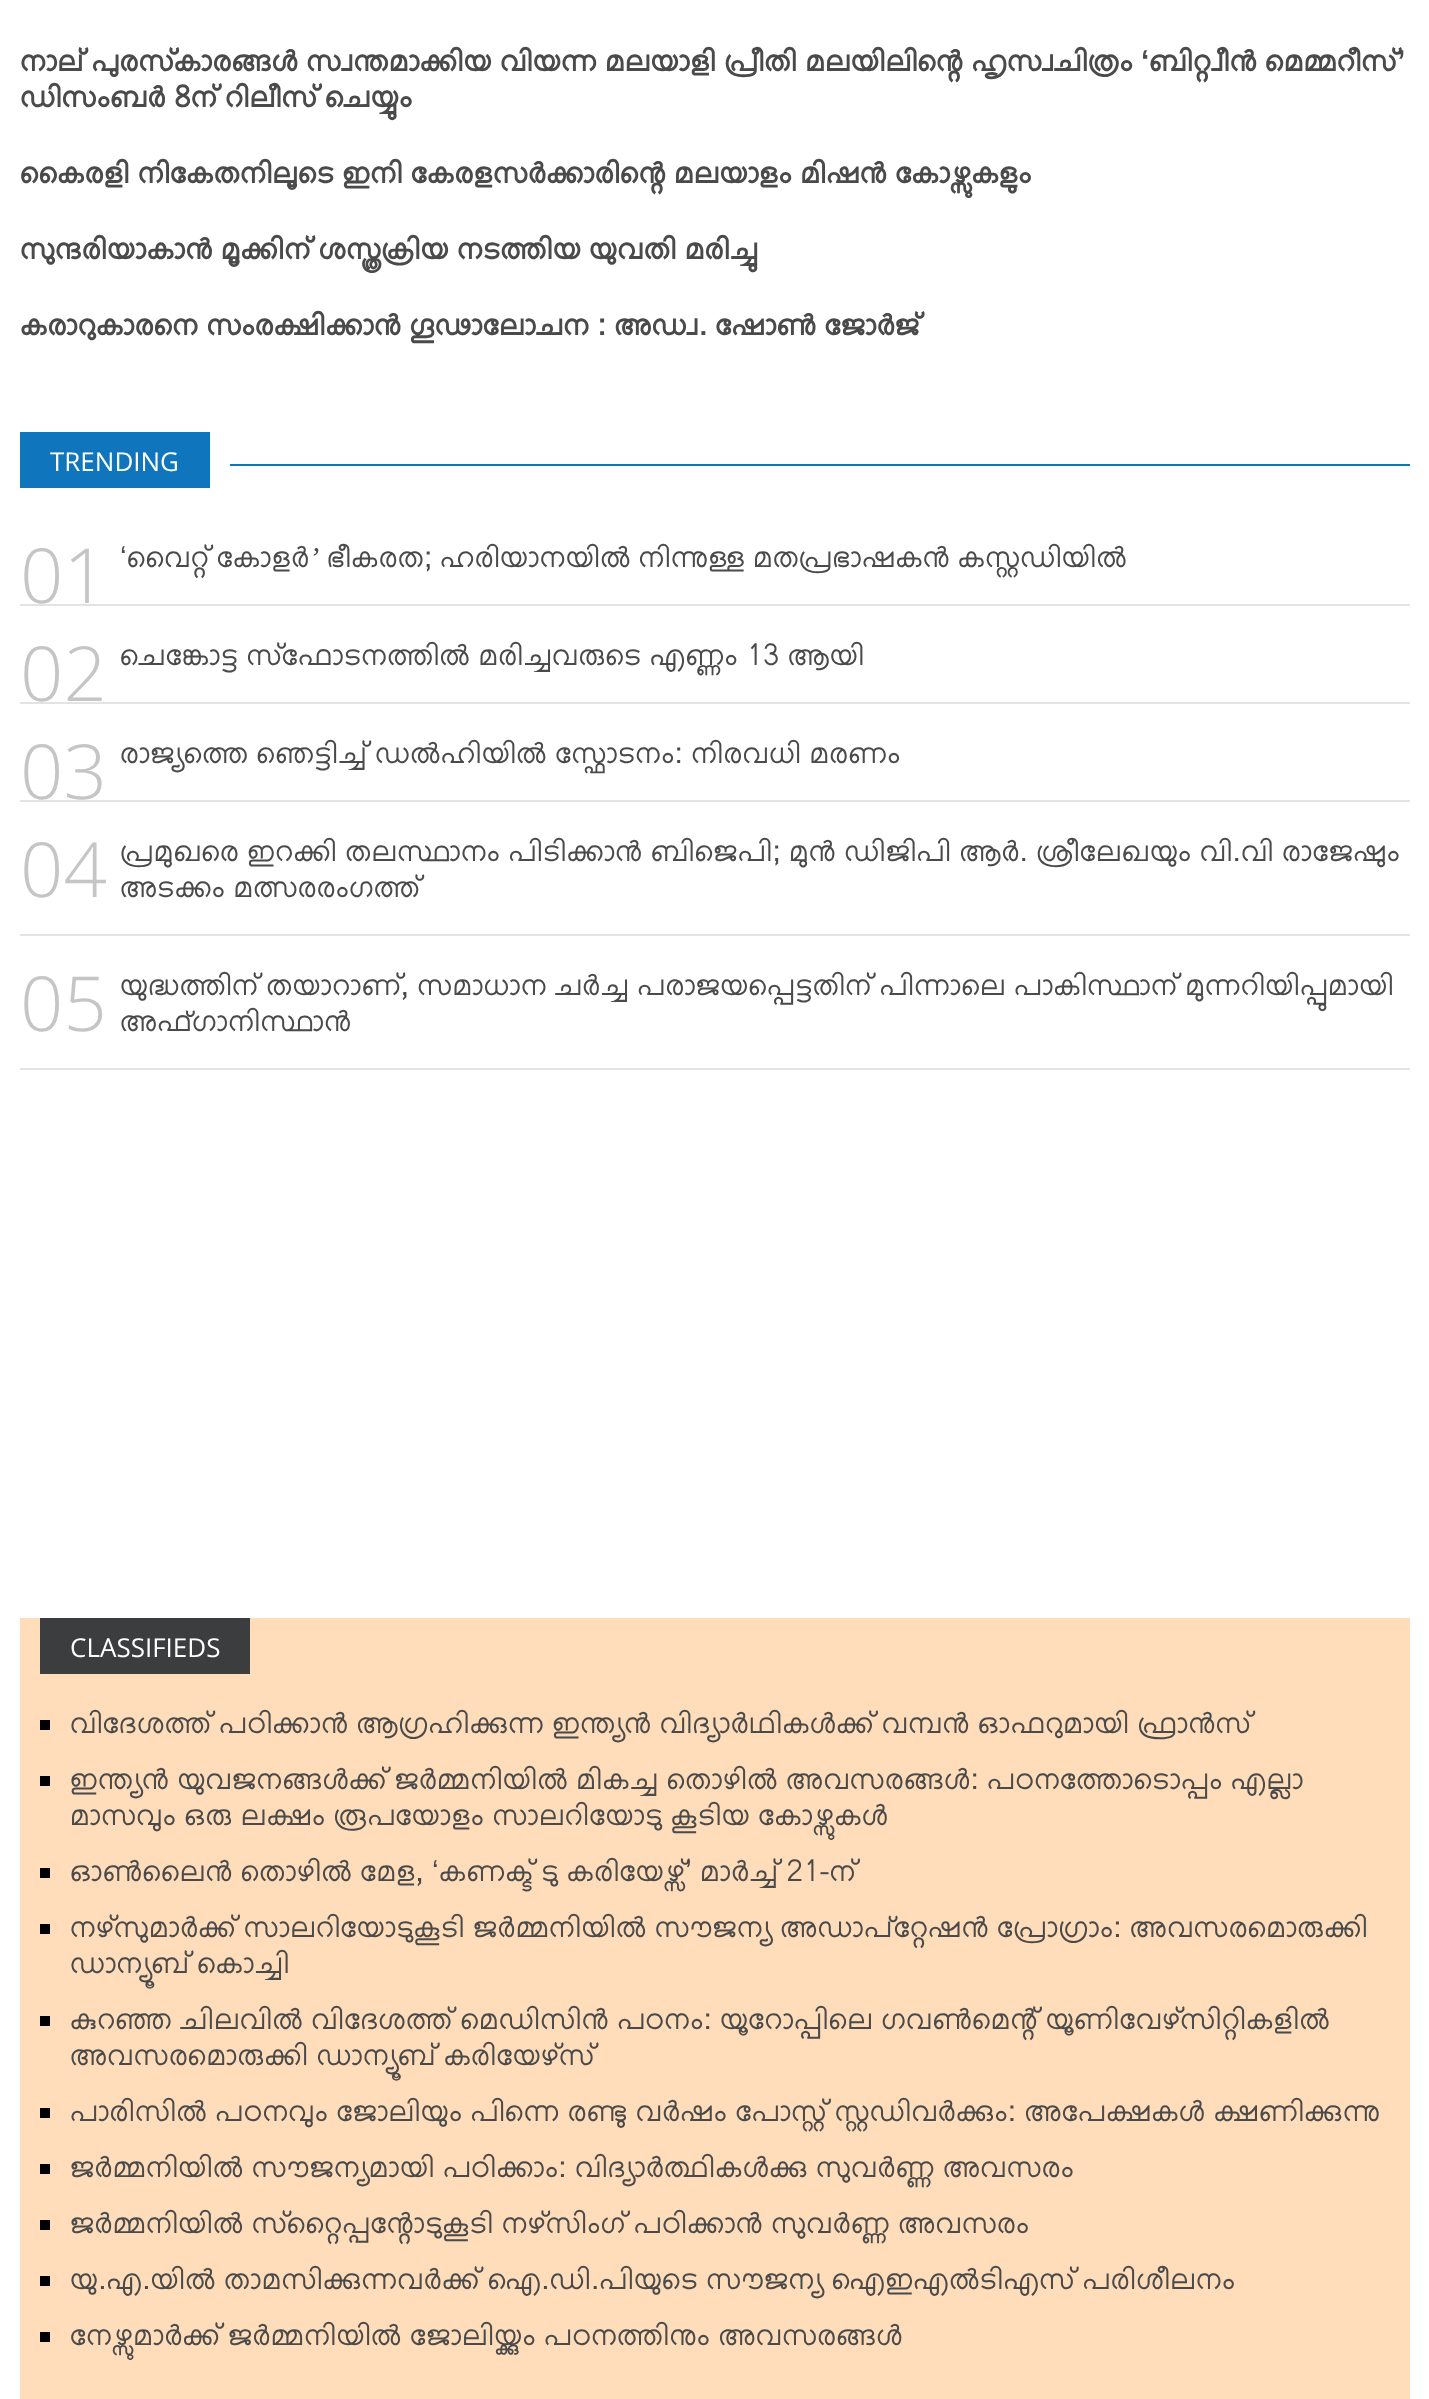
<?xml version="1.0" encoding="UTF-8"?>
<svg xmlns="http://www.w3.org/2000/svg" xmlns:xlink="http://www.w3.org/1999/xlink" width="1429" height="2399">
  <rect width="100%" height="100%" fill="#ffffff" />
  <rect x="20" y="432" width="190" height="56" fill="#0f75bc" />
  <rect x="230" y="464" width="1180" height="2" fill="#0f75bc" />
  <rect x="20" y="604" width="1390" height="2" fill="#e3e3e3" />
  <rect x="20" y="702" width="1390" height="2" fill="#e3e3e3" />
  <rect x="20" y="800" width="1390" height="2" fill="#e3e3e3" />
  <rect x="20" y="934" width="1390" height="2" fill="#e3e3e3" />
  <rect x="20" y="1068" width="1390" height="2" fill="#e3e3e3" />
  <rect x="20" y="1618" width="1390" height="781" fill="#ffddba" />
  <rect x="40" y="1618" width="210" height="56" fill="#3c3d3e" />
  <rect x="40" y="1720" width="10" height="10" fill="#000000" />
  <rect x="40" y="1776" width="10" height="10" fill="#000000" />
  <rect x="40" y="1868" width="10" height="10" fill="#000000" />
  <rect x="40" y="1924" width="10" height="10" fill="#000000" />
  <rect x="40" y="2016" width="10" height="10" fill="#000000" />
  <rect x="40" y="2108" width="10" height="10" fill="#000000" />
  <rect x="40" y="2164" width="10" height="10" fill="#000000" />
  <rect x="40" y="2220" width="10" height="10" fill="#000000" />
  <rect x="40" y="2276" width="10" height="10" fill="#000000" />
  <rect x="40" y="2332" width="10" height="10" fill="#000000" />
  <text x="20" y="71" style="font-family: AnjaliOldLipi; font-size: 30px; font-weight: bold; font-style: italic; fill: #4a4a4a">നാല് പുരസ്‌കാരങ്ങള്‍ സ്വന്തമാക്കിയ വിയന്ന മലയാളി പ്രീതി മലയിലിന്റെ ഹൃസ്വചിത്രം</text>
  <text x="1141" y="71" style="font-family: Liberation Sans; font-size: 30px; font-weight: bold; fill: #4a4a4a">‘</text>
  <text x="1149" y="71" style="font-family: AnjaliOldLipi; font-size: 30px; font-weight: bold; font-style: italic; fill: #4a4a4a">ബിറ്റ്വീന്‍ മെമ്മറീസ്</text>
  <text x="1397" y="71" style="font-family: Liberation Sans; font-size: 30px; font-weight: bold; fill: #4a4a4a">’</text>
  <text x="20" y="107" style="font-family: AnjaliOldLipi; font-size: 30px; font-weight: bold; font-style: italic; fill: #4a4a4a">ഡിസംബര്‍ 8ന് റിലീസ് ചെയ്യും</text>
  <text x="20" y="183" style="font-family: AnjaliOldLipi; font-size: 30px; font-weight: bold; font-style: italic; fill: #4a4a4a">കൈരളി നികേതനിലൂടെ ഇനി കേരളസര്‍ക്കാരിന്റെ മലയാളം മിഷന്‍ കോഴ്സുകളും</text>
  <text x="20" y="259" style="font-family: AnjaliOldLipi; font-size: 30px; font-weight: bold; font-style: italic; fill: #4a4a4a">സുന്ദരിയാകാന്‍ മൂക്കിന് ശസ്ത്രക്രിയ നടത്തിയ യുവതി മരിച്ചു</text>
  <text x="20" y="335" style="font-family: AnjaliOldLipi; font-size: 30px; font-weight: bold; font-style: italic; fill: #4a4a4a">കരാറുകാരനെ സംരക്ഷിക്കാന്‍ ഗൂഢാലോചന : അഡ്വ. ഷോണ്‍ ജോര്‍ജ്</text>
  <text x="50" y="471" style="font-family: Open Sans; font-size: 26px; fill: #ffffff">TRENDING</text>
  <text x="20" y="603" style="font-family: Open Sans; font-size: 76px; font-weight: 300; fill: #c5c5c5">01</text>
  <text x="120" y="567" style="font-family: Liberation Sans; font-size: 30px; fill: #4a4a4a">‘</text>
  <text x="127" y="567" word-spacing="-0.5" style="font-family: AnjaliOldLipi; font-size: 30px; font-style: italic; fill: #4a4a4a">വൈറ്റ് കോളര്‍’ ഭീകരത; ഹരിയാനയില്‍ നിന്നുള്ള മതപ്രഭാഷകന്‍ കസ്റ്റഡിയില്‍</text>
  <text x="20" y="701" style="font-family: Open Sans; font-size: 76px; font-weight: 300; fill: #c5c5c5">02</text>
  <text x="120" y="665" style="font-family: AnjaliOldLipi; font-size: 30px; font-style: italic; fill: #4a4a4a">ചെങ്കോട്ട സ്‌ഫോടനത്തില്‍ മരിച്ചവരുടെ എണ്ണം 13 ആയി</text>
  <text x="20" y="799" style="font-family: Open Sans; font-size: 76px; font-weight: 300; fill: #c5c5c5">03</text>
  <text x="120" y="763" style="font-family: AnjaliOldLipi; font-size: 30px; font-style: italic; fill: #4a4a4a">രാജ്യത്തെ ഞെട്ടിച്ച് ഡല്‍ഹിയില്‍ സ്ഫോടനം: നിരവധി മരണം</text>
  <text x="20" y="897" style="font-family: Open Sans; font-size: 76px; font-weight: 300; fill: #c5c5c5">04</text>
  <text x="120" y="861" style="font-family: AnjaliOldLipi; font-size: 30px; font-style: italic; fill: #4a4a4a">പ്രമുഖരെ ഇറക്കി തലസ്ഥാനം പിടിക്കാന്‍ ബിജെപി; മുന്‍ ഡിജിപി ആര്‍. ശ്രീലേഖയും വി.വി രാജേഷും</text>
  <text x="120" y="897" style="font-family: AnjaliOldLipi; font-size: 30px; font-style: italic; fill: #4a4a4a">അടക്കം മത്സരരംഗത്ത്</text>
  <text x="20" y="1031" style="font-family: Open Sans; font-size: 76px; font-weight: 300; fill: #c5c5c5">05</text>
  <text x="120" y="995" style="font-family: AnjaliOldLipi; font-size: 30px; font-style: italic; fill: #4a4a4a">യുദ്ധത്തിന് തയാറാണ്, സമാധാന ചര്‍ച്ച പരാജയപ്പെട്ടതിന് പിന്നാലെ പാകിസ്ഥാന് മുന്നറിയിപ്പുമായി</text>
  <text x="120" y="1031" style="font-family: AnjaliOldLipi; font-size: 30px; font-style: italic; fill: #4a4a4a">അഫ്ഗാനിസ്ഥാന്‍</text>
  <text x="70" y="1657" style="font-family: Open Sans; font-size: 26px; fill: #ffffff">CLASSIFIEDS</text>
  <text x="70" y="1733" style="font-family: AnjaliOldLipi; font-size: 30px; font-style: italic; fill: #4a4a4a">വിദേശത്ത് പഠിക്കാന്‍ ആഗ്രഹിക്കുന്ന ഇന്ത്യന്‍ വിദ്യാര്‍ഥികള്‍ക്ക് വമ്പന്‍ ഓഫറുമായി ഫ്രാന്‍സ്</text>
  <text x="70" y="1789" style="font-family: AnjaliOldLipi; font-size: 30px; font-style: italic; fill: #4a4a4a">ഇന്ത്യന്‍ യുവജനങ്ങള്‍ക്ക് ജര്‍മ്മനിയില്‍ മികച്ച തൊഴില്‍ അവസരങ്ങള്‍: പഠനത്തോടൊപ്പം എല്ലാ</text>
  <text x="70" y="1825" style="font-family: AnjaliOldLipi; font-size: 30px; font-style: italic; fill: #4a4a4a">മാസവും ഒരു ലക്ഷം രൂപയോളം സാലറിയോടു കൂടിയ കോഴ്സുകള്‍</text>
  <text x="70" y="1881" style="font-family: AnjaliOldLipi; font-size: 30px; font-style: italic; fill: #4a4a4a">ഓണ്‍ലൈന്‍ തൊഴില്‍ മേള,</text>
  <text x="432" y="1881" style="font-family: Liberation Sans; font-size: 30px; fill: #4a4a4a">‘</text>
  <text x="439" y="1881" style="font-family: AnjaliOldLipi; font-size: 30px; font-style: italic; fill: #4a4a4a">കണക്ട് ടു കരിയേഴ്സ്</text>
  <text x="685" y="1881" style="font-family: Liberation Sans; font-size: 30px; fill: #4a4a4a">’</text>
  <text x="700" y="1881" style="font-family: AnjaliOldLipi; font-size: 30px; font-style: italic; fill: #4a4a4a">മാര്‍ച്ച് 21-ന്</text>
  <text x="70" y="1937" style="font-family: AnjaliOldLipi; font-size: 30px; font-style: italic; fill: #4a4a4a">നഴ്‌സുമാര്‍ക്ക് സാലറിയോടുകൂടി ജര്‍മ്മനിയില്‍ സൗജന്യ അഡാപ്റ്റേഷന്‍ പ്രോഗ്രാം: അവസരമൊരുക്കി</text>
  <text x="70" y="1973" style="font-family: AnjaliOldLipi; font-size: 30px; font-style: italic; fill: #4a4a4a">ഡാന്യൂബ് കൊച്ചി</text>
  <text x="70" y="2029" style="font-family: AnjaliOldLipi; font-size: 30px; font-style: italic; fill: #4a4a4a">കുറഞ്ഞ ചിലവില്‍ വിദേശത്ത് മെഡിസിന്‍ പഠനം: യൂറോപ്പിലെ ഗവണ്‍മെന്റ് യൂണിവേഴ്‌സിറ്റികളില്‍</text>
  <text x="70" y="2065" style="font-family: AnjaliOldLipi; font-size: 30px; font-style: italic; fill: #4a4a4a">അവസരമൊരുക്കി ഡാന്യൂബ് കരിയേഴ്‌സ്</text>
  <text x="70" y="2121" style="font-family: AnjaliOldLipi; font-size: 30px; font-style: italic; fill: #4a4a4a">പാരിസില്‍ പഠനവും ജോലിയും പിന്നെ രണ്ടു വര്‍ഷം പോസ്റ്റ് സ്റ്റഡിവര്‍ക്കും: അപേക്ഷകള്‍ ക്ഷണിക്കുന്നു</text>
  <text x="70" y="2177" style="font-family: AnjaliOldLipi; font-size: 30px; font-style: italic; fill: #4a4a4a">ജര്‍മ്മനിയില്‍ സൗജന്യമായി പഠിക്കാം: വിദ്യാര്‍ത്ഥികള്‍ക്കു സുവര്‍ണ്ണ അവസരം</text>
  <text x="70" y="2233" style="font-family: AnjaliOldLipi; font-size: 30px; font-style: italic; fill: #4a4a4a">ജര്‍മ്മനിയില്‍ സ്‌റ്റൈപ്പന്റോടുകൂടി നഴ്‌സിംഗ് പഠിക്കാന്‍ സുവര്‍ണ്ണ അവസരം</text>
  <text x="70" y="2289" style="font-family: AnjaliOldLipi; font-size: 30px; font-style: italic; fill: #4a4a4a">യു.എ.യില്‍ താമസിക്കുന്നവര്‍ക്ക് ഐ.ഡി.പിയുടെ സൗജന്യ ഐഇഎല്‍ടിഎസ് പരിശീലനം</text>
  <text x="70" y="2345" style="font-family: AnjaliOldLipi; font-size: 30px; font-style: italic; fill: #4a4a4a">നേഴ്സുമാര്‍ക്ക് ജര്‍മ്മനിയില്‍ ജോലിയ്ക്കും പഠനത്തിനും അവസരങ്ങള്‍</text>
</svg>
